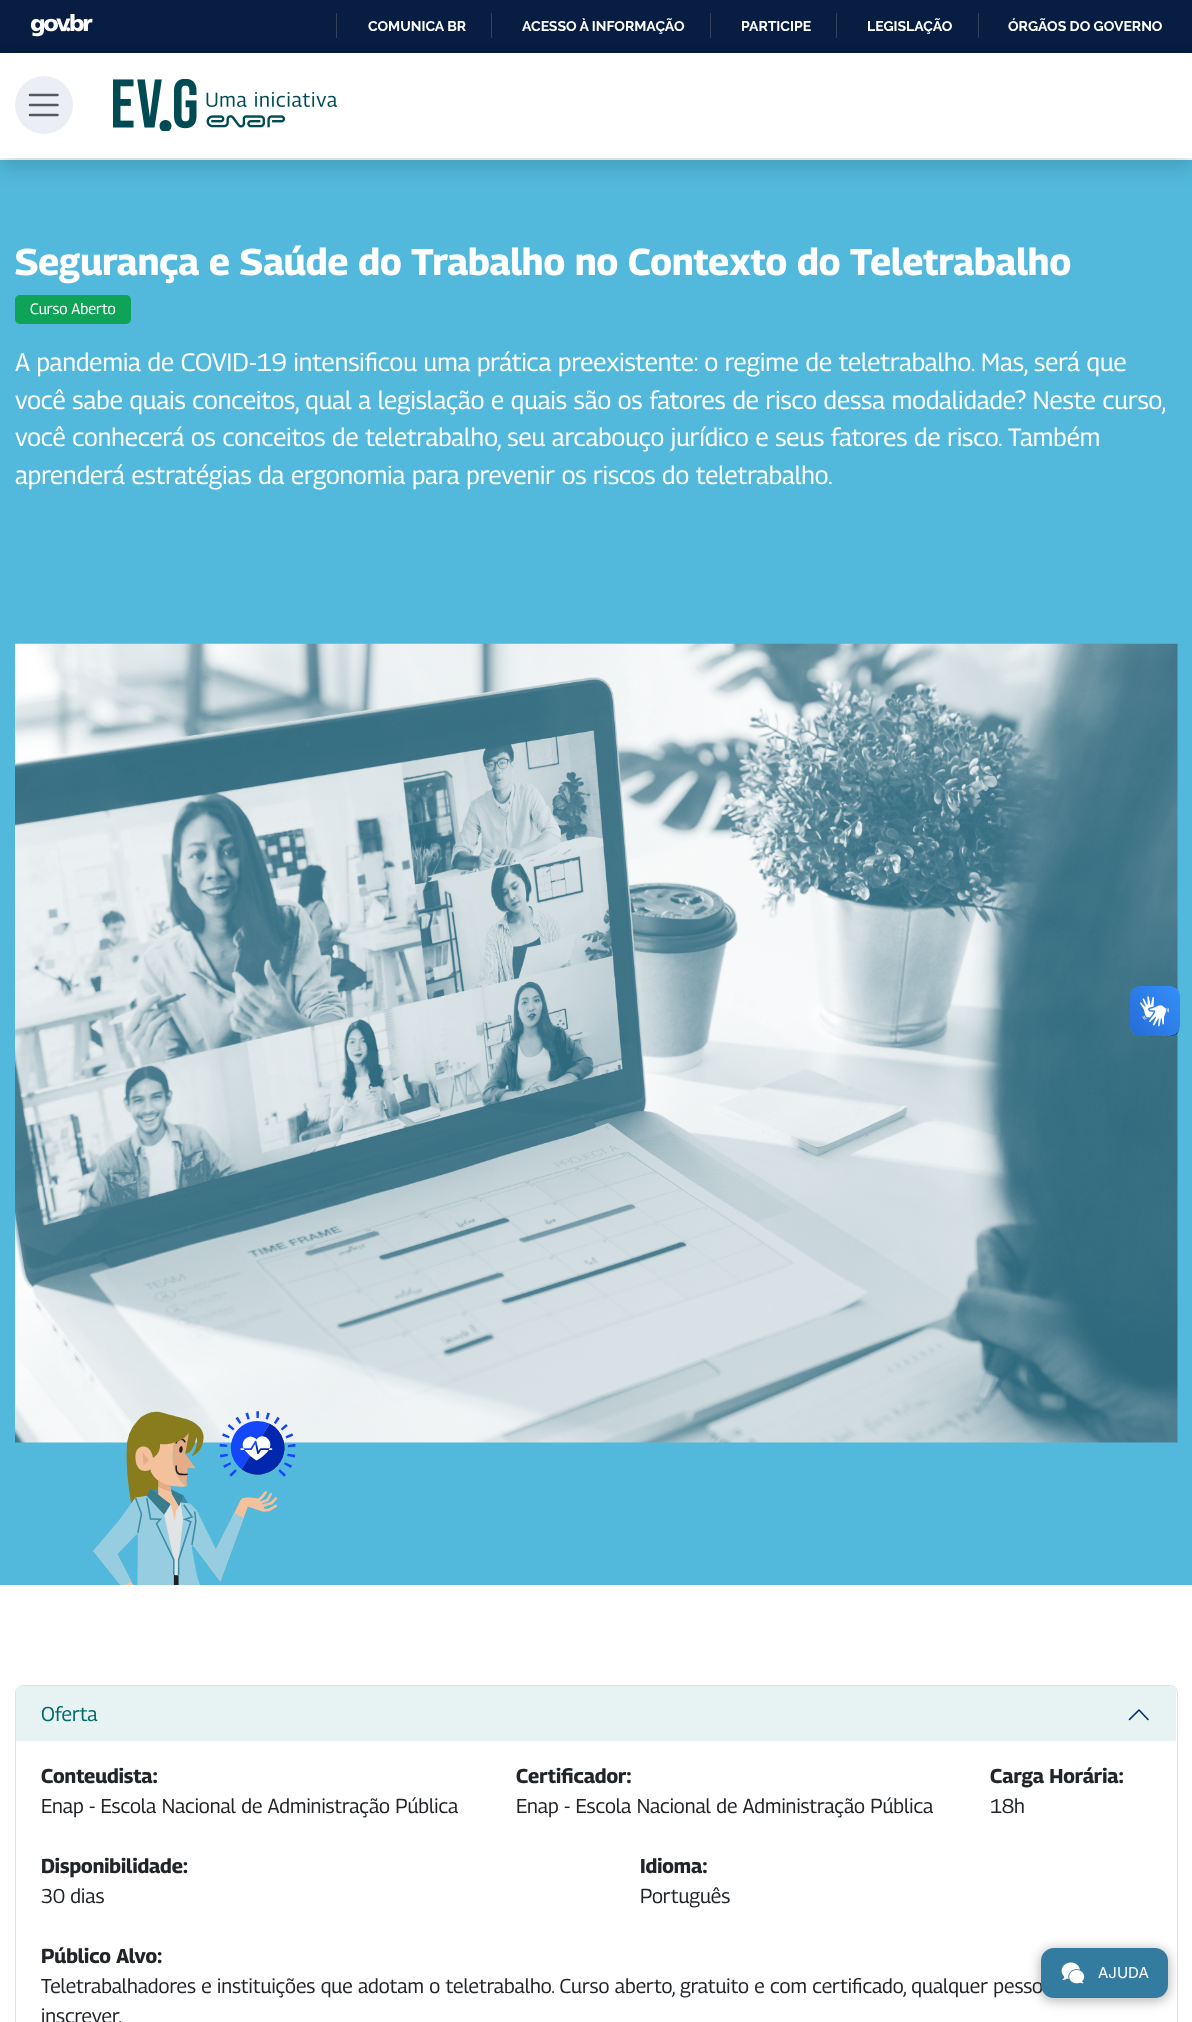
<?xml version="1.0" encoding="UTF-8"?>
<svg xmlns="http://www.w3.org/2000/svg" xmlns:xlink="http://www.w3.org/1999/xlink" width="1192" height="2022">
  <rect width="100%" height="100%" fill="#ffffff" />
  <rect width="1192" height="53" fill="#071d41" />
  <image x="31" y="14" width="62" height="23" xlink:href="image1.png" />
  <rect x="336" y="13" width="1" height="25" fill="#32425b" />
  <rect x="491" y="13" width="1" height="25" fill="#32425b" />
  <rect x="710" y="13" width="1" height="25" fill="#32425b" />
  <rect x="836" y="13" width="1" height="25" fill="#32425b" />
  <rect x="978" y="13" width="1" height="25" fill="#32425b" />
  <rect y="160" width="1192" height="1425" fill="#52b9dd" />
  <rect y="63" width="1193" height="105" fill="#000000" fill-opacity="0.15" filter="blur(10px)" />
  <rect y="53" width="1192" height="105" fill="#ffffff" />
  <circle cx="44" cy="105" r="29" fill="#ebeff5" />
  <path d="M 30 95 h 27.5 m -27.5 10 h 27.5 m -27.5 10 h 27.5" fill="none" stroke="#54585c" stroke-width="2.5" stroke-linecap="round" />
  <image x="113" y="79" width="225" height="52" xlink:href="image2.png" />
  <rect x="15" y="295" width="116" height="29" rx="5" fill="#0fa358" />
  <image x="15" y="643" width="1163" height="800" xlink:href="image3.png" />
  <image x="93" y="1411" width="203" height="174" xlink:href="image4.png" />
  <path d="M 23 1685.5 h 1147 c 4 0 7.5 3.5 7.5 7.5 v 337.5 h -1162 v -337.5 c 0 -4 3.5 -7.5 7.5 -7.5 z" fill="none" stroke="#dee2e6" />
  <path d="M 22 1686 h 1148 c 3.5 0 6 2.5 6 6 v 49 h -1160 v -49 c 0 -3.5 2.5 -6 6 -6 z" fill="#e6f3f2" />
  <path d="M 1148 1719.5 l -9 -9.5 l -9.5 9.5" fill="none" stroke="#052c65" stroke-width="1.6" stroke-linecap="round" stroke-linejoin="round" />
  <image x="1130" y="986" width="50" height="51" xlink:href="image5.png" />
  <image x="1130" y="986" width="50" height="50" xlink:href="image6.png" />
  <rect x="1040" y="1949" width="129" height="52" rx="14" fill="#b5b5b5" filter="blur(6px)" />
  <text x="368" y="31" style="font-family: Raleway; font-size: 14px; font-weight: bold; fill: #ffffff">COMUNICA BR</text>
  <text x="522" y="31" style="font-family: Raleway; font-size: 14px; font-weight: bold; fill: #ffffff">ACESSO À INFORMAÇÃO</text>
  <text x="741" y="31" style="font-family: Raleway; font-size: 14px; font-weight: bold; fill: #ffffff">PARTICIPE</text>
  <text x="867" y="31" style="font-family: Raleway; font-size: 14px; font-weight: bold; fill: #ffffff">LEGISLAÇÃO</text>
  <text x="1008" y="31" style="font-family: Raleway; font-size: 14px; font-weight: bold; fill: #ffffff">ÓRGÃOS DO GOVERNO</text>
  <text x="15" y="275" style="font-family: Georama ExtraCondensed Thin; font-size: 37.25px; font-weight: bold; fill: #ffffff">Segurança e Saúde do Trabalho no Contexto do Teletrabalho</text>
  <text x="30" y="314" style="font-family: Georama ExtraCondensed Thin; font-size: 15px; fill: #ffffff">Curso Aberto</text>
  <text x="15" y="371" style="font-family: Georama ExtraCondensed Thin; font-size: 25px; fill: #ffffff">A pandemia de COVID-19 intensificou uma prática preexistente: o regime de teletrabalho. Mas, será que</text>
  <text x="15" y="409" style="font-family: Georama ExtraCondensed Thin; font-size: 25px; fill: #ffffff">você sabe quais conceitos, qual a legislação e quais são os fatores de risco dessa modalidade? Neste curso,</text>
  <text x="15" y="446" style="font-family: Georama ExtraCondensed Thin; font-size: 25px; fill: #ffffff">você conhecerá os conceitos de teletrabalho, seu arcabouço jurídico e seus fatores de risco. Também</text>
  <text x="15" y="484" style="font-family: Georama ExtraCondensed Thin; font-size: 25px; fill: #ffffff">aprenderá estratégias da ergonomia para prevenir os riscos do teletrabalho.</text>
  <text x="41" y="1721" style="font-family: Georama ExtraCondensed Thin; font-size: 20px; fill: #006969">Oferta</text>
  <text x="41" y="1783" style="font-family: Georama ExtraCondensed Thin; font-size: 20px; font-weight: bold; fill: #212529">Conteudista:</text>
  <text x="41" y="1813" style="font-family: Georama ExtraCondensed Thin; font-size: 20px; fill: #212529">Enap - Escola Nacional de Administração Pública</text>
  <text x="516" y="1783" style="font-family: Georama ExtraCondensed Thin; font-size: 20px; font-weight: bold; fill: #212529">Certificador:</text>
  <text x="516" y="1813" style="font-family: Georama ExtraCondensed Thin; font-size: 20px; fill: #212529">Enap - Escola Nacional de Administração Pública</text>
  <text x="990" y="1783" style="font-family: Georama ExtraCondensed Thin; font-size: 20px; font-weight: bold; fill: #212529">Carga Horária:</text>
  <text x="990" y="1813" style="font-family: Georama ExtraCondensed Thin; font-size: 20px; fill: #212529">18h</text>
  <text x="41" y="1873" style="font-family: Georama ExtraCondensed Thin; font-size: 20px; font-weight: bold; fill: #212529">Disponibilidade:</text>
  <text x="41" y="1903" style="font-family: Georama ExtraCondensed Thin; font-size: 20px; fill: #212529">30 dias</text>
  <text x="640" y="1873" style="font-family: Georama ExtraCondensed Thin; font-size: 20px; font-weight: bold; fill: #212529">Idioma:</text>
  <text x="640" y="1903" style="font-family: Georama ExtraCondensed Thin; font-size: 20px; fill: #212529">Português</text>
  <text x="41" y="1963" style="font-family: Georama ExtraCondensed Thin; font-size: 20px; font-weight: bold; fill: #212529">Público Alvo:</text>
  <text x="41" y="1993" style="font-family: Georama ExtraCondensed Thin; font-size: 20px; fill: #212529">Teletrabalhadores e instituições que adotam o teletrabalho. Curso aberto, gratuito e com certificado, qualquer pesso</text>
  <text x="41" y="2023" style="font-family: Georama ExtraCondensed Thin; font-size: 20px; fill: #212529">inscrever.</text>
  <rect x="1041" y="1948" width="127" height="50" rx="13" fill="#337ca0" />
  <image x="1061" y="1962" width="24" height="22" xlink:href="image7.png" />
  <text x="1098" y="1978" style="font-family: Inter; font-size: 15px; fill: #ffffff">AJUDA</text>
</svg>
